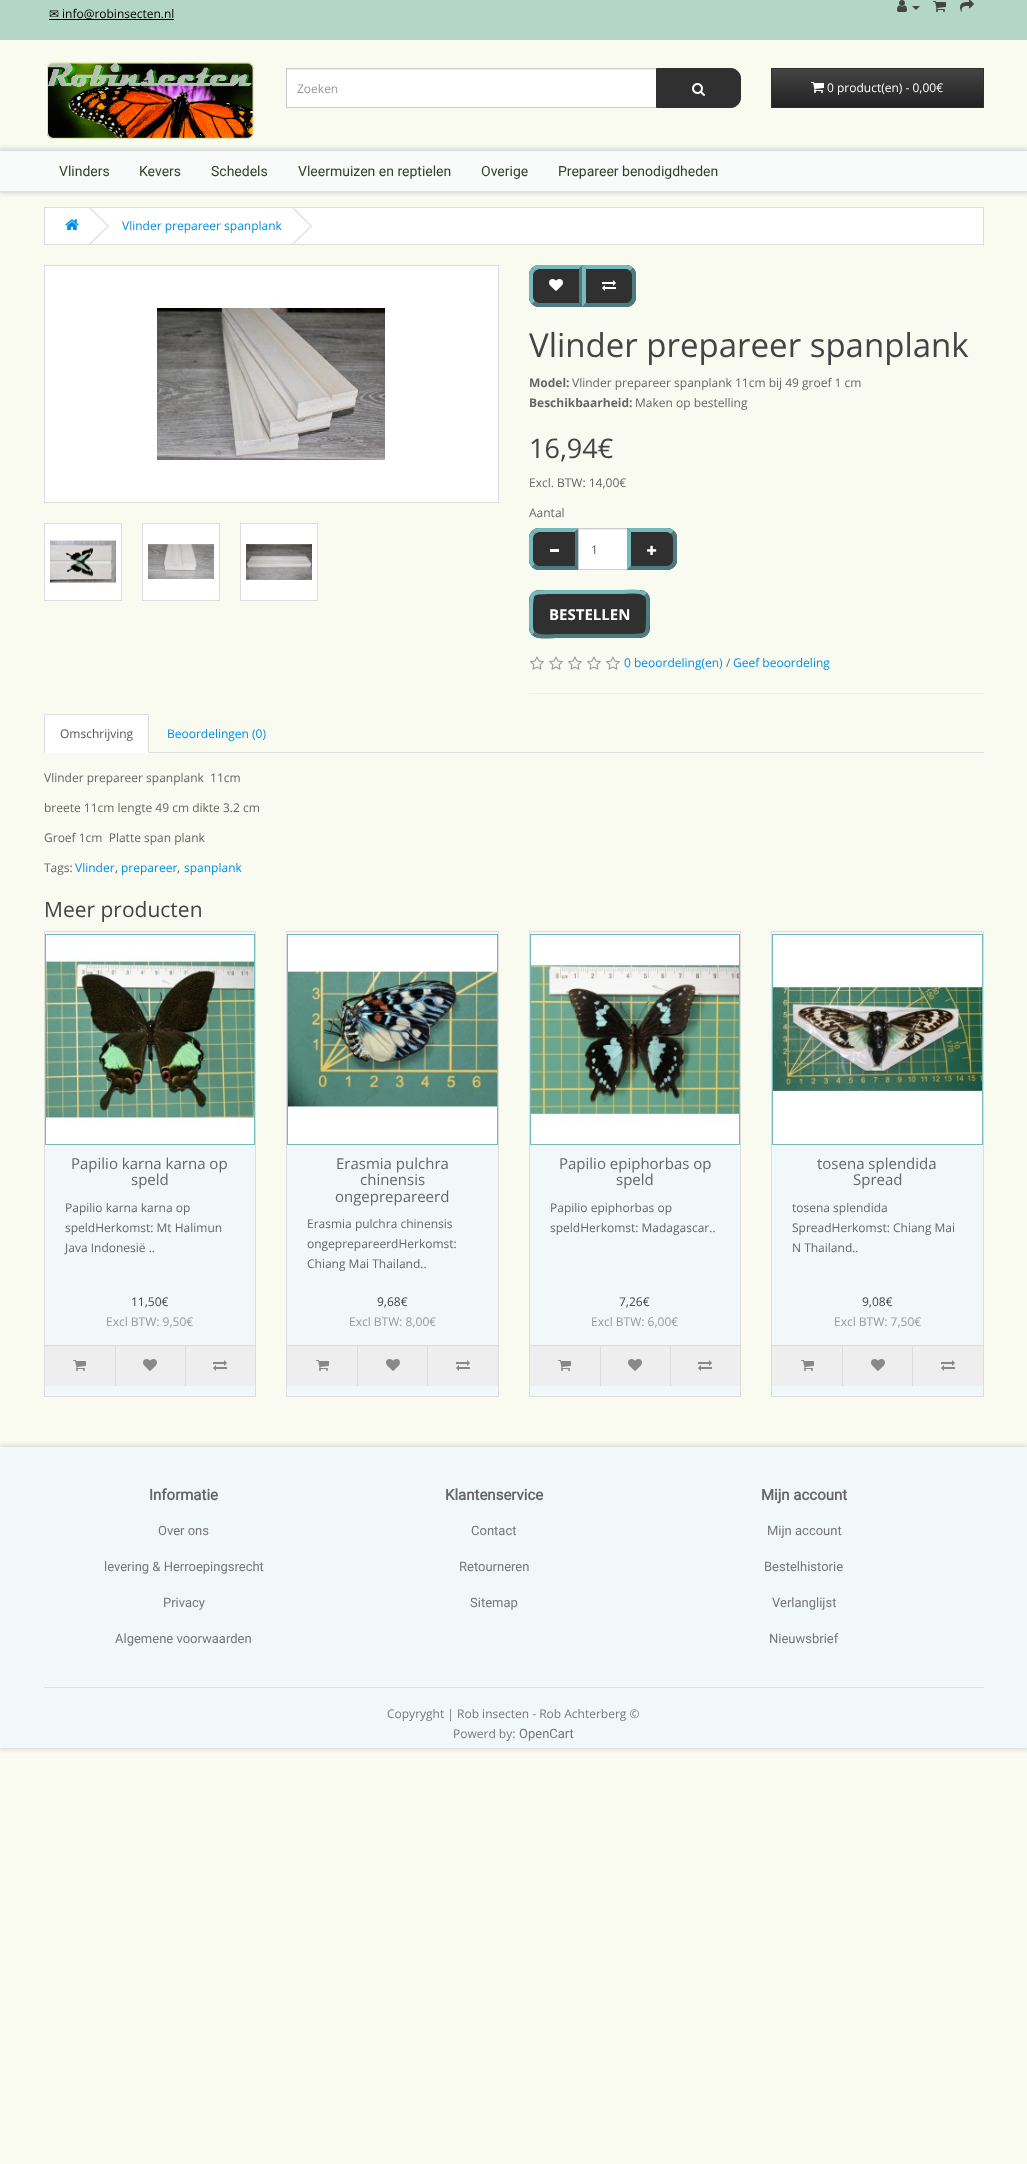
<?xml version="1.0" encoding="UTF-8"?>
<svg xmlns="http://www.w3.org/2000/svg" xmlns:xlink="http://www.w3.org/1999/xlink" width="1027" height="2164">
  <defs>
    <linearGradient id="g1" gradientUnits="userSpaceOnUse" x1="878" y1="69" x2="878" y2="107"><stop offset="0" stop-color="#444444" /><stop offset="1" stop-color="#222222" /></linearGradient>
  </defs>
  <rect width="100%" height="100%" fill="#f9fbf1" />
  <rect width="1027" height="40" fill="#b3d6c6" />
  <image x="897" y="0" width="10" height="12" xlink:href="image1.png" />
  <path d="M 912 6 h 8 l -4 4 z" fill="#444444" />
  <image x="933" y="1" width="13" height="11" xlink:href="image2.png" />
  <image x="960" y="0" width="14" height="12" xlink:href="image3.png" />
  <rect x="49" y="19" width="125" height="1" fill="#000000" />
  <image x="47" y="62" width="207" height="77" xlink:href="image4.png" />
  <rect x="287" y="70" width="369" height="37" fill="#ffffff" />
  <rect x="287" y="69" width="369" height="1" fill="#ececec" />
  <rect x="286.5" y="68.5" width="370" height="39" fill="none" stroke="#cccccc" />
  <path d="M 656.5 68.5 h 74.5 c 5 0 9.5 4.5 9.5 9.5 v 20 c 0 5 -4.5 9.5 -9.5 9.5 h -74.5 z" fill="#303030" stroke="#303030" />
  <image x="692" y="83" width="13" height="13" xlink:href="image5.png" />
  <rect x="772" y="69" width="211" height="38" fill="url(#g1)" />
  <rect x="771.5" y="68.5" width="212" height="39" fill="none" stroke="#303030" />
  <image x="811" y="82" width="13" height="11" xlink:href="image6.png" />
  <rect x="-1" y="149" width="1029" height="44" fill="#d1d1d1" filter="blur(2.5px)" />
  <rect y="151" width="1027" height="40" fill="#f8fbf9" />
  <rect y="150" width="1027" height="1" fill="#dddddd" />
  <rect y="191" width="1027" height="1" fill="#dddddd" />
  <rect x="44.5" y="207.5" width="939" height="37" fill="#ffffff" stroke="#dddddd" />
  <image x="65" y="219" width="14" height="11" xlink:href="image7.png" />
  <path d="M 89.5 208.5 l 1 -1 l 18.5 18.5 l -1 0.5 z" fill="#dddddd" />
  <path d="M 89.5 243.5 l 18.5 -18 l 1 0.5 l -18.5 18.5 z" fill="#dddddd" />
  <path d="M 292.5 208.5 l 1 -1 l 18.5 18.5 l -1 0.5 z" fill="#dddddd" />
  <path d="M 292.5 243.5 l 18.5 -18 l 1 0.5 l -18.5 18.5 z" fill="#dddddd" />
  <rect x="44.5" y="265.5" width="454" height="237" fill="#ffffff" stroke="#dddddd" />
  <image x="157" y="302" width="228" height="160" xlink:href="image8.png" />
  <rect x="44.5" y="523.5" width="77" height="77" fill="#ffffff" stroke="#dddddd" />
  <image x="50" y="539" width="66" height="47" xlink:href="image9.png" />
  <rect x="142.5" y="523.5" width="77" height="77" fill="#ffffff" stroke="#dddddd" />
  <image x="148" y="543" width="66" height="36" xlink:href="image10.png" />
  <rect x="240.5" y="523.5" width="77" height="77" fill="#ffffff" stroke="#dddddd" />
  <image x="246" y="543" width="66" height="37" xlink:href="image11.png" />
  <path d="M 539 265 h 44 v 42 h -44 c -5.5 0 -10 -4.5 -10 -10 v -22 c 0 -5.5 4.5 -10 10 -10 z" fill="#303030" />
  <path d="M 539 265 c -3 0 -5 1 -7 3 l 3 3 c 1 -1 3 -2 4 -2 h 40 l 4 -4 z" fill="#75b9be" />
  <path d="M 583 265 l -4 4 v 34 l 4 4 z" fill="#4e7b7f" />
  <path d="M 583 307 l -4 -4 h -40 c -1 0 -3 -1 -4 -2 l -3 3 c 2 2 4 3 7 3 z" fill="#4e7b7f" />
  <path d="M 529 275 v 22 c 0 3 1 5.5 3 7 l 3 -3 c -1 -1 -2 -2.5 -2 -4 v -22 c 0 -1.5 1 -3 2 -4 l -3 -3 c -2 1.5 -3 4 -3 7 z" fill="#75b9be" />
  <image x="549" y="279" width="14" height="12" xlink:href="image12.png" />
  <path d="M 582 265 h 44 c 5.5 0 10 4.5 10 10 v 22 c 0 5.5 -4.5 10 -10 10 h -44 z" fill="#303030" />
  <path d="M 582 265 l 4 4 h 40 c 2 0 3 1 4 2 l 3 -3 c -1 -2 -4 -3 -7 -3 z" fill="#75b9be" />
  <path d="M 636 297 v -22 c 0 -3 -1 -5.5 -3 -7 l -3 3 c 1 1 2 2.5 2 4 v 22 c 0 1.5 -1 3 -2 4 l 3 3 c 2 -1.5 3 -4 3 -7 z" fill="#4e7b7f" />
  <path d="M 626 307 c 3 0 6 -1 7 -3 l -3 -3 c -1 1 -2 2 -4 2 h -40 l -4 4 z" fill="#4e7b7f" />
  <path d="M 582 265 v 42 l 4 -4 v -34 z" fill="#75b9be" />
  <image x="602" y="280" width="14" height="11" xlink:href="image13.png" />
  <path d="M 539 528 h 40 v 42 h -40 c -5.5 0 -10 -4.5 -10 -10 v -22 c 0 -5.5 4.5 -10 10 -10 z" fill="#303030" />
  <path d="M 539 528 c -3 0 -5 1 -7 3 l 3 3 c 1 -1 3 -2 4 -2 h 36 l 4 -4 z" fill="#75b9be" />
  <path d="M 579 528 l -4 4 v 34 l 4 4 z" fill="#4e7b7f" />
  <path d="M 579 570 l -4 -4 h -36 c -1 0 -3 -1 -4 -2 l -3 3 c 2 2 4 3 7 3 z" fill="#4e7b7f" />
  <path d="M 529 538 v 22 c 0 3 1 5.5 3 7 l 3 -3 c -1 -1 -2 -2.5 -2 -4 v -22 c 0 -1.5 1 -3 2 -4 l -3 -3 c -2 1.5 -3 4 -3 7 z" fill="#75b9be" />
  <rect x="550" y="549" width="9" height="3" fill="#ffffff" />
  <rect x="579" y="530" width="48" height="39" fill="#ffffff" />
  <rect x="579" y="529" width="48" height="1" fill="#ececec" />
  <rect x="578.5" y="528.5" width="49" height="41" fill="none" stroke="#cccccc" />
  <path d="M 627 528 h 40 c 5.5 0 10 4.5 10 10 v 22 c 0 5.5 -4.5 10 -10 10 h -40 z" fill="#303030" />
  <path d="M 627 528 l 4 4 h 36 c 1 0 3 1 4 2 l 3 -3 c -2 -2 -4 -3 -7 -3 z" fill="#75b9be" />
  <path d="M 677 560 v -22 c 0 -3 -1 -5.5 -3 -7 l -3 3 c 1 1 2 2.5 2 4 v 22 c 0 1.5 -1 3 -2 4 l 3 3 c 2 -1.5 3 -4 3 -7 z" fill="#4e7b7f" />
  <path d="M 667 570 c 3 0 5 -1 7 -3 l -3 -3 c -1 1 -3 2 -4 2 h -36 l -4 4 z" fill="#4e7b7f" />
  <path d="M 627 528 v 42 l 4 -4 v -34 z" fill="#75b9be" />
  <image x="647" y="545" width="10" height="10" xlink:href="image14.png" />
  <rect x="529" y="590" width="121" height="48" rx="10" fill="#303030" />
  <path d="M 645.5 594.5 c 3 2.5 2.5 6.5 2.5 10 v 9.5 c 0 24.5 1 22 -25 22 h -67 c -3 0 -17.5 2.5 -22.5 -2.5" fill="none" stroke="#4e7b7f" stroke-width="4" />
  <path d="M 533.5 633.5 c -3 -2.5 -2.5 -6.5 -2.5 -10 v -9.5 c 0 -24.5 -1 -22 25 -22 h 67 c 3 0 17.5 -2.5 22.5 2.5" fill="none" stroke="#75b9be" stroke-width="4" />
  <image x="530" y="656" width="14" height="14" xlink:href="image15.png" />
  <image x="549" y="656" width="14" height="14" xlink:href="image15.png" />
  <image x="568" y="656" width="14" height="14" xlink:href="image15.png" />
  <image x="587" y="656" width="14" height="14" xlink:href="image15.png" />
  <image x="606" y="656" width="14" height="14" xlink:href="image15.png" />
  <rect x="529" y="693" width="455" height="1" fill="#eeeeee" />
  <rect x="149" y="752" width="835" height="1" fill="#dddddd" />
  <rect x="44" y="715" width="105" height="38" fill="#ffffff" />
  <rect x="44" y="714" width="105" height="1" fill="#dddddd" />
  <path d="M 149 714 v 39 l -1 -1 v -37 z" fill="#dddddd" />
  <path d="M 44 753 v -39 l 1 1 v 37 z" fill="#dddddd" />
  <rect x="44.5" y="931.5" width="211" height="465" fill="#f2f8f9" stroke="#dddddd" />
  <rect x="45.5" y="934.5" width="209" height="210" fill="none" stroke="#75b9be" />
  <image x="46" y="935" width="208" height="209" xlink:href="image16.png" />
  <rect x="45" y="1346" width="210" height="40" fill="#eeeeee" />
  <rect x="45" y="1345" width="210" height="1" fill="#dddddd" />
  <image x="73" y="1360" width="13" height="11" xlink:href="image17.png" />
  <rect x="115" y="1346" width="1" height="40" fill="#dddddd" />
  <image x="143" y="1359" width="14" height="12" xlink:href="image18.png" />
  <rect x="185" y="1346" width="1" height="40" fill="#dddddd" />
  <image x="213" y="1360" width="14" height="11" xlink:href="image19.png" />
  <rect x="286.5" y="931.5" width="212" height="465" fill="#f2f8f9" stroke="#dddddd" />
  <rect x="287.5" y="934.5" width="210" height="210" fill="none" stroke="#75b9be" />
  <image x="288" y="935" width="209" height="209" xlink:href="image20.png" />
  <rect x="287" y="1346" width="211" height="40" fill="#eeeeee" />
  <rect x="287" y="1345" width="211" height="1" fill="#dddddd" />
  <image x="316" y="1360" width="13" height="11" xlink:href="image17.png" />
  <rect x="357" y="1346" width="1" height="40" fill="#dddddd" />
  <image x="386" y="1359" width="14" height="12" xlink:href="image18.png" />
  <rect x="427" y="1346" width="1" height="40" fill="#dddddd" />
  <image x="456" y="1360" width="14" height="11" xlink:href="image19.png" />
  <rect x="529.5" y="931.5" width="211" height="465" fill="#f2f8f9" stroke="#dddddd" />
  <rect x="530.5" y="934.5" width="209" height="210" fill="none" stroke="#75b9be" />
  <image x="531" y="935" width="208" height="209" xlink:href="image21.png" />
  <rect x="530" y="1346" width="210" height="40" fill="#eeeeee" />
  <rect x="530" y="1345" width="210" height="1" fill="#dddddd" />
  <image x="558" y="1360" width="13" height="11" xlink:href="image17.png" />
  <rect x="600" y="1346" width="1" height="40" fill="#dddddd" />
  <image x="628" y="1359" width="14" height="12" xlink:href="image18.png" />
  <rect x="670" y="1346" width="1" height="40" fill="#dddddd" />
  <image x="698" y="1360" width="14" height="11" xlink:href="image19.png" />
  <rect x="771.5" y="931.5" width="212" height="465" fill="#f2f8f9" stroke="#dddddd" />
  <rect x="772.5" y="934.5" width="210" height="210" fill="none" stroke="#75b9be" />
  <image x="773" y="935" width="209" height="209" xlink:href="image22.png" />
  <rect x="772" y="1346" width="211" height="40" fill="#eeeeee" />
  <rect x="772" y="1345" width="211" height="1" fill="#dddddd" />
  <image x="801" y="1360" width="13" height="11" xlink:href="image17.png" />
  <rect x="842" y="1346" width="1" height="40" fill="#dddddd" />
  <image x="871" y="1359" width="14" height="12" xlink:href="image18.png" />
  <rect x="912" y="1346" width="1" height="40" fill="#dddddd" />
  <image x="941" y="1360" width="14" height="11" xlink:href="image19.png" />
  <rect x="-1" y="1446" width="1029" height="303" fill="#d1d1d1" filter="blur(2.5px)" />
  <rect y="1447" width="1027" height="301" fill="#f2f8f9" />
  <rect x="44" y="1687" width="940" height="1" fill="#e1e1e1" />
  <text x="49" y="18" style="font-family: DejaVu Sans; font-size: 12px; fill: #000000">✉</text>
  <text x="62" y="18" style="font-family: Open Sans; font-size: 12px; fill: #000000">info@robinsecten.nl</text>
  <text x="297" y="93" style="font-family: Open Sans; font-size: 12px; fill: #999999">Zoeken</text>
  <text x="827" y="92" style="font-family: Open Sans; font-size: 12px; fill: #ffffff">0 product(en) - 0,00€</text>
  <text x="59" y="176" style="font-family: Roboto; font-size: 14px; fill: #33422c">Vlinders</text>
  <text x="139" y="176" style="font-family: Roboto; font-size: 14px; fill: #33422c">Kevers</text>
  <text x="211" y="176" style="font-family: Roboto; font-size: 14px; fill: #33422c">Schedels</text>
  <text x="298" y="176" style="font-family: Roboto; font-size: 14px; fill: #33422c">Vleermuizen en reptielen</text>
  <text x="481" y="176" style="font-family: Roboto; font-size: 14px; fill: #33422c">Overige</text>
  <text x="558" y="176" style="font-family: Roboto; font-size: 14px; fill: #33422c">Prepareer benodigdheden</text>
  <text x="122" y="230" style="font-family: Open Sans; font-size: 12px; fill: #0090e3">Vlinder prepareer spanplank</text>
  <text x="529" y="357" style="font-family: Open Sans; font-size: 33px; fill: #444444">Vlinder prepareer spanplank</text>
  <text x="529" y="387" style="font-family: Open Sans; font-size: 12px; font-weight: bold; fill: #666666">Model:</text>
  <text x="572" y="387" style="font-family: Open Sans; font-size: 12px; fill: #666666">Vlinder prepareer spanplank 11cm bij 49 groef 1 cm</text>
  <text x="529" y="407" style="font-family: Open Sans; font-size: 12px; font-weight: bold; fill: #666666">Beschikbaarheid:</text>
  <text x="635" y="407" style="font-family: Open Sans; font-size: 12px; fill: #666666">Maken op bestelling</text>
  <text x="529" y="458" style="font-family: Open Sans; font-size: 27px; fill: #444444">16,94€</text>
  <text x="529" y="487" style="font-family: Open Sans; font-size: 12px; fill: #666666">Excl. BTW: 14,00€</text>
  <text x="529" y="517" style="font-family: Open Sans; font-size: 12px; fill: #666666">Aantal</text>
  <text x="591" y="554" style="font-family: Open Sans; font-size: 12px; fill: #555555">1</text>
  <text x="549" y="620" style="font-family: Open Sans; font-size: 15px; font-weight: bold; fill: #ffffff">BESTELLEN</text>
  <text x="624" y="667" style="font-family: Open Sans; font-size: 12px; fill: #0090e3">0 beoordeling(en)</text>
  <text x="726" y="667" style="font-family: Open Sans; font-size: 12px; fill: #666666">/</text>
  <text x="733" y="667" style="font-family: Open Sans; font-size: 12px; fill: #0090e3">Geef beoordeling</text>
  <text x="60" y="738" style="font-family: Open Sans; font-size: 12px; fill: #555555">Omschrijving</text>
  <text x="167" y="738" style="font-family: Open Sans; font-size: 12px; fill: #0090e3">Beoordelingen (0)</text>
  <text x="44" y="782" style="font-family: Open Sans; font-size: 12px; fill: #666666" xml:space="preserve">Vlinder prepareer spanplank  11cm</text>
  <text x="44" y="812" style="font-family: Open Sans; font-size: 12px; fill: #666666">breete 11cm lengte 49 cm dikte 3.2 cm</text>
  <text x="44" y="842" style="font-family: Open Sans; font-size: 12px; fill: #666666" xml:space="preserve">Groef 1cm  Platte span plank</text>
  <text x="44" y="872" style="font-family: Open Sans; font-size: 12px; fill: #666666">Tags:</text>
  <text x="75" y="872" style="font-family: Open Sans; font-size: 12px; fill: #0090e3">Vlinder</text>
  <text x="115" y="872" style="font-family: Open Sans; font-size: 12px; fill: #666666">,</text>
  <text x="121" y="872" style="font-family: Open Sans; font-size: 12px; fill: #0090e3">prepareer</text>
  <text x="177" y="872" style="font-family: Open Sans; font-size: 12px; fill: #666666">,</text>
  <text x="184" y="872" style="font-family: Open Sans; font-size: 12px; fill: #0090e3">spanplank</text>
  <text x="44" y="917" style="font-family: Open Sans; font-size: 21px; fill: #444444">Meer producten</text>
  <text x="71" y="1169" style="font-family: Open Sans; font-size: 15px; fill: #666666">Papilio karna karna op</text>
  <text x="131" y="1185" style="font-family: Open Sans; font-size: 15px; fill: #666666">speld</text>
  <text x="65" y="1212" style="font-family: Open Sans; font-size: 12px; fill: #666666">Papilio karna karna op</text>
  <text x="65" y="1232" style="font-family: Open Sans; font-size: 12px; fill: #666666">speldHerkomst: Mt Halimun</text>
  <text x="65" y="1252" style="font-family: Open Sans; font-size: 12px; fill: #666666">Java Indonesië ..</text>
  <text x="131" y="1306" style="font-family: Open Sans; font-size: 12px; fill: #444444">11,50€</text>
  <text x="106" y="1326" style="font-family: Open Sans; font-size: 12px; fill: #999999">Excl BTW: 9,50€</text>
  <text x="336" y="1169" style="font-family: Open Sans; font-size: 15px; fill: #666666">Erasmia pulchra</text>
  <text x="360" y="1185" style="font-family: Open Sans; font-size: 15px; fill: #666666">chinensis</text>
  <text x="335" y="1202" style="font-family: Open Sans; font-size: 15px; fill: #666666">ongeprepareerd</text>
  <text x="307" y="1228" style="font-family: Open Sans; font-size: 12px; fill: #666666">Erasmia pulchra chinensis</text>
  <text x="307" y="1248" style="font-family: Open Sans; font-size: 12px; fill: #666666">ongeprepareerdHerkomst:</text>
  <text x="307" y="1268" style="font-family: Open Sans; font-size: 12px; fill: #666666">Chiang Mai Thailand..</text>
  <text x="377" y="1306" style="font-family: Open Sans; font-size: 12px; fill: #444444">9,68€</text>
  <text x="349" y="1326" style="font-family: Open Sans; font-size: 12px; fill: #999999">Excl BTW: 8,00€</text>
  <text x="559" y="1169" style="font-family: Open Sans; font-size: 15px; fill: #666666">Papilio epiphorbas op</text>
  <text x="616" y="1185" style="font-family: Open Sans; font-size: 15px; fill: #666666">speld</text>
  <text x="550" y="1212" style="font-family: Open Sans; font-size: 12px; fill: #666666">Papilio epiphorbas op</text>
  <text x="550" y="1232" style="font-family: Open Sans; font-size: 12px; fill: #666666">speldHerkomst: Madagascar..</text>
  <text x="619" y="1306" style="font-family: Open Sans; font-size: 12px; fill: #444444">7,26€</text>
  <text x="591" y="1326" style="font-family: Open Sans; font-size: 12px; fill: #999999">Excl BTW: 6,00€</text>
  <text x="817" y="1169" style="font-family: Open Sans; font-size: 15px; fill: #666666">tosena splendida</text>
  <text x="853" y="1185" style="font-family: Open Sans; font-size: 15px; fill: #666666">Spread</text>
  <text x="792" y="1212" style="font-family: Open Sans; font-size: 12px; fill: #666666">tosena splendida</text>
  <text x="792" y="1232" style="font-family: Open Sans; font-size: 12px; fill: #666666">SpreadHerkomst: Chiang Mai</text>
  <text x="792" y="1252" style="font-family: Open Sans; font-size: 12px; fill: #666666">N Thailand..</text>
  <text x="862" y="1306" style="font-family: Open Sans; font-size: 12px; fill: #444444">9,08€</text>
  <text x="834" y="1326" style="font-family: Open Sans; font-size: 12px; fill: #999999">Excl BTW: 7,50€</text>
  <text x="149" y="1500" style="font-family: Roboto; font-size: 15px; font-weight: bold; fill: #666666">Informatie</text>
  <text x="158" y="1535" style="font-family: Roboto; font-size: 13px; fill: #777777">Over ons</text>
  <text x="104" y="1571" style="font-family: Roboto; font-size: 13px; fill: #777777">levering &amp; Herroepingsrecht</text>
  <text x="163" y="1607" style="font-family: Roboto; font-size: 13px; fill: #777777">Privacy</text>
  <text x="115" y="1643" style="font-family: Roboto; font-size: 13px; fill: #777777">Algemene voorwaarden</text>
  <text x="445" y="1500" style="font-family: Roboto; font-size: 15px; font-weight: bold; fill: #666666">Klantenservice</text>
  <text x="471" y="1535" style="font-family: Roboto; font-size: 13px; fill: #777777">Contact</text>
  <text x="459" y="1571" style="font-family: Roboto; font-size: 13px; fill: #777777">Retourneren</text>
  <text x="470" y="1607" style="font-family: Roboto; font-size: 13px; fill: #777777">Sitemap</text>
  <text x="761" y="1500" style="font-family: Roboto; font-size: 15px; font-weight: bold; fill: #666666">Mijn account</text>
  <text x="767" y="1535" style="font-family: Roboto; font-size: 13px; fill: #777777">Mijn account</text>
  <text x="764" y="1571" style="font-family: Roboto; font-size: 13px; fill: #777777">Bestelhistorie</text>
  <text x="772" y="1607" style="font-family: Roboto; font-size: 13px; fill: #777777">Verlanglijst</text>
  <text x="769" y="1643" style="font-family: Roboto; font-size: 13px; fill: #777777">Nieuwsbrief</text>
  <text x="387" y="1718" style="font-family: Open Sans; font-size: 12px; fill: #777777">Copyryght | Rob insecten - Rob Achterberg ©</text>
  <text x="453" y="1738" style="font-family: Open Sans; font-size: 12px; fill: #777777">Powerd by:</text>
  <text x="519" y="1738" style="font-family: Roboto; font-size: 13px; fill: #777777">OpenCart</text>
</svg>
